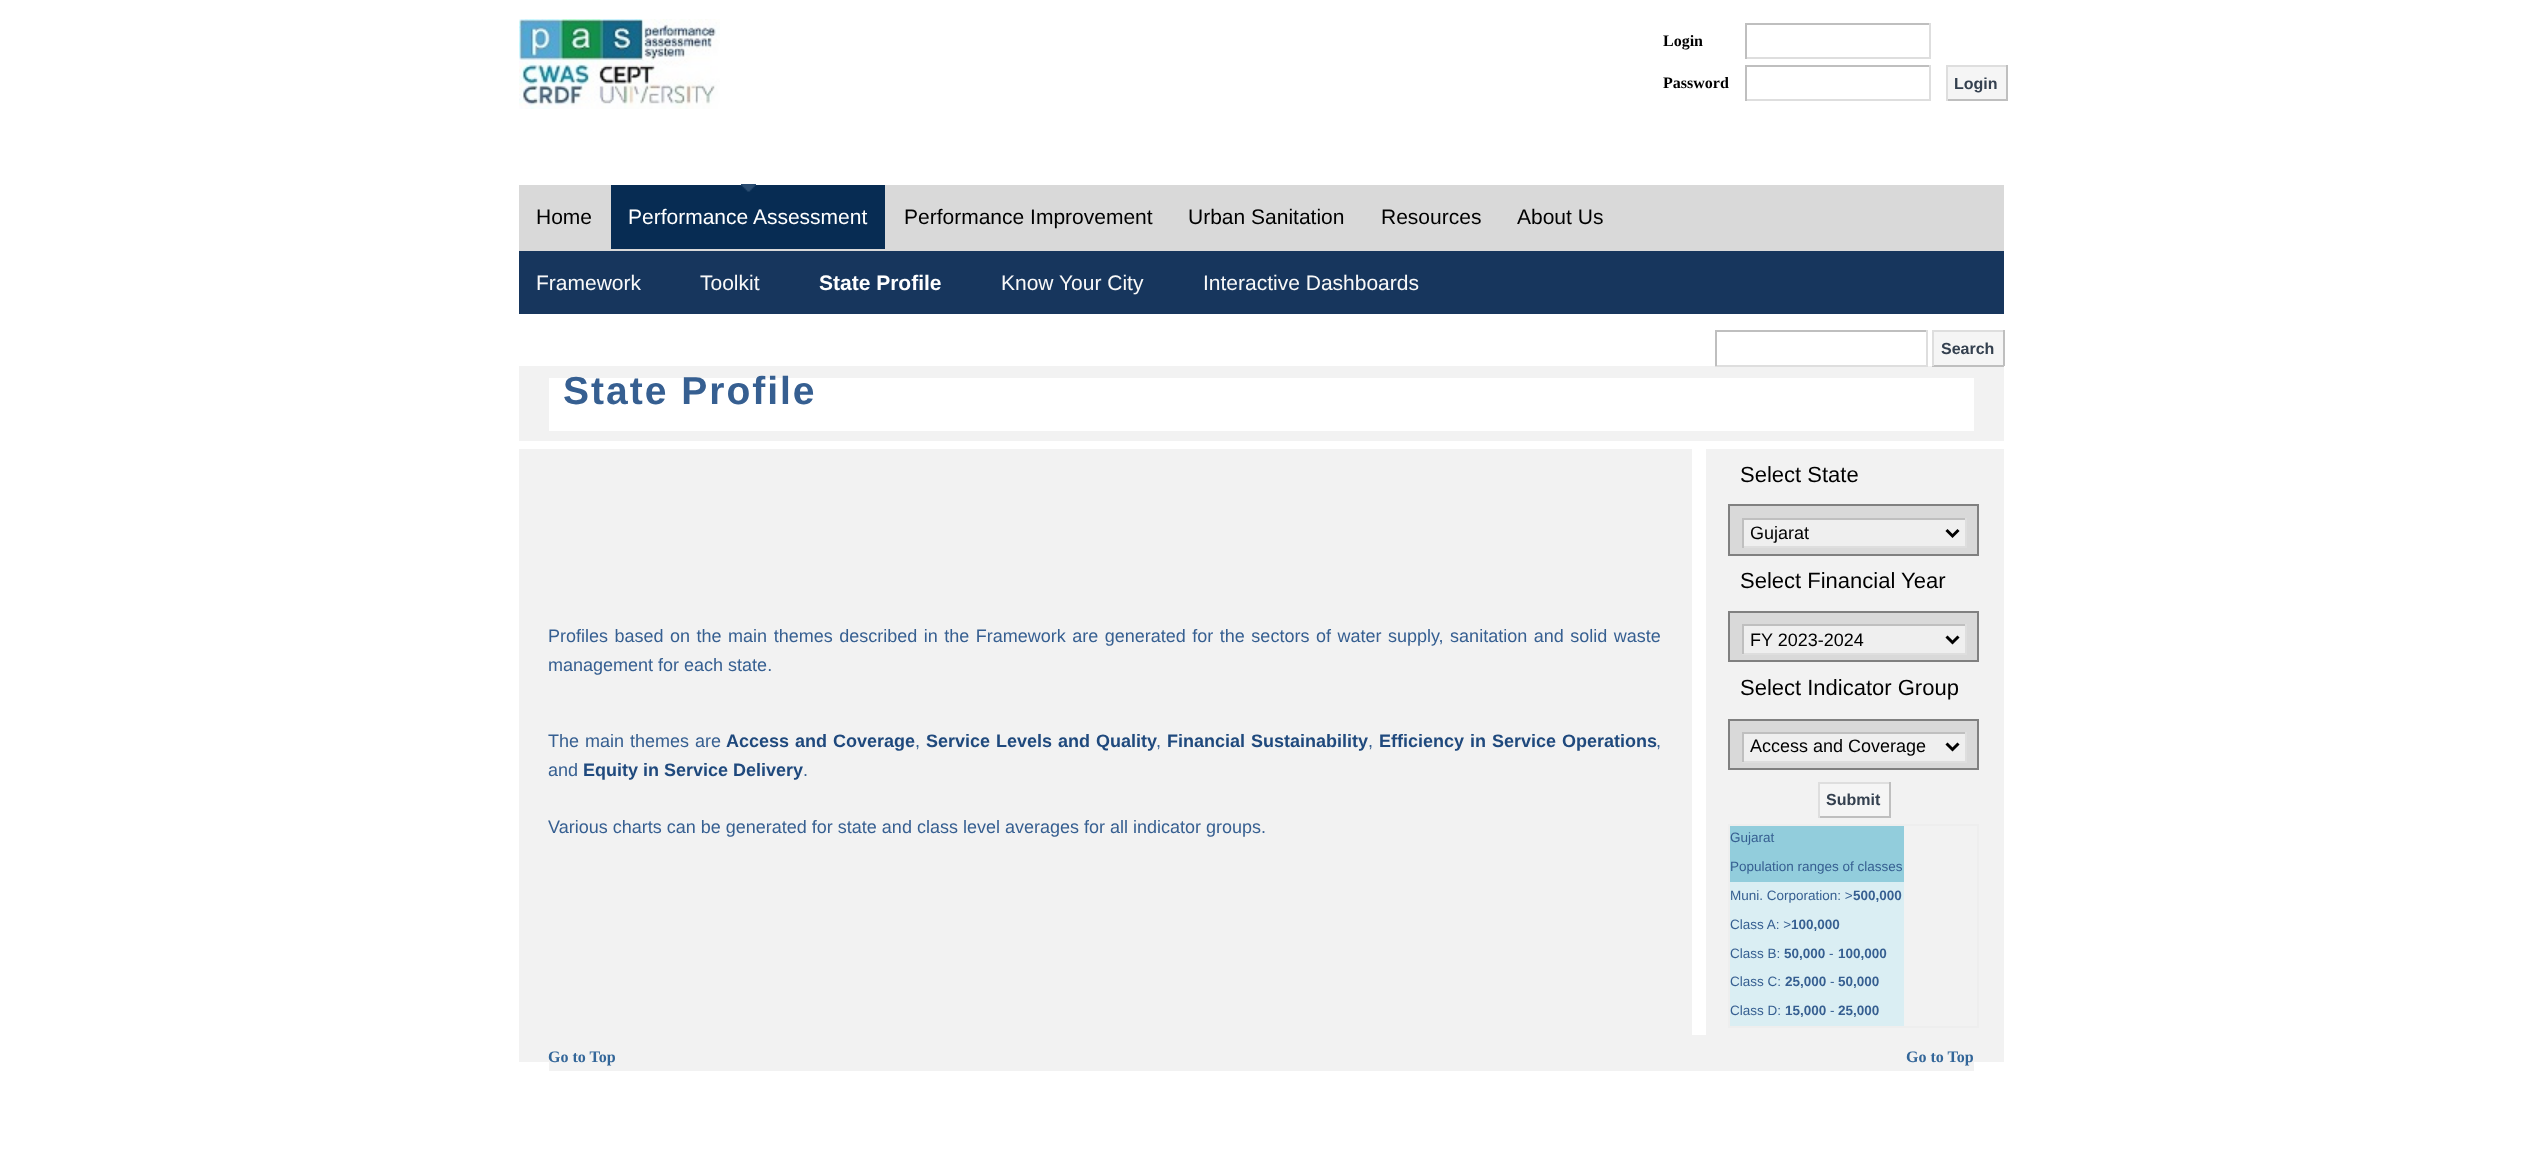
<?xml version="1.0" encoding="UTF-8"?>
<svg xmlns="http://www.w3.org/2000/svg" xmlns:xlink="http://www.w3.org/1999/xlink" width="2521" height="1169">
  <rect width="100%" height="100%" fill="#ffffff" />
  <image x="519" y="19" width="201" height="90" xlink:href="image1.png" />
  <rect x="1745" y="23" width="186" height="2" fill="#bfbfbf" />
  <rect x="1929" y="23" width="2" height="36" fill="#dedede" />
  <rect x="1745" y="57" width="186" height="2" fill="#dedede" />
  <rect x="1745" y="23" width="2" height="36" fill="#bfbfbf" />
  <rect x="1745" y="65" width="186" height="2" fill="#bfbfbf" />
  <rect x="1929" y="65" width="2" height="36" fill="#dedede" />
  <rect x="1745" y="99" width="186" height="2" fill="#dedede" />
  <rect x="1745" y="65" width="2" height="36" fill="#bfbfbf" />
  <rect x="1948" y="67" width="58" height="32" fill="#f5f5f5" />
  <rect x="1946" y="65" width="61" height="2" fill="#dedede" />
  <rect x="2006" y="65" width="2" height="36" fill="#bfbfbf" />
  <rect x="1946" y="99" width="61" height="2" fill="#bfbfbf" />
  <rect x="1946" y="65" width="2" height="36" fill="#dedede" />
  <rect x="519" y="185" width="1485" height="66" fill="#d9d9d9" />
  <rect x="611" y="185" width="274" height="64" fill="#072c53" />
  <image x="741" y="184" width="15" height="8" xlink:href="image2.png" />
  <rect x="519" y="251" width="1485" height="63" fill="#17365d" />
  <rect x="1715" y="330" width="213" height="2" fill="#bfbfbf" />
  <rect x="1926" y="330" width="2" height="36" fill="#dedede" />
  <rect x="519" y="366" width="1485" height="75" fill="#f2f2f2" />
  <rect x="1715" y="365" width="213" height="2" fill="#dedede" />
  <rect x="1715" y="330" width="2" height="36" fill="#bfbfbf" />
  <rect x="1934" y="332" width="69" height="33" fill="#f5f5f5" />
  <rect x="1932" y="330" width="72" height="2" fill="#dedede" />
  <rect x="2003" y="330" width="2" height="36" fill="#bfbfbf" />
  <rect x="1932" y="365" width="72" height="2" fill="#bfbfbf" />
  <rect x="1932" y="330" width="2" height="36" fill="#dedede" />
  <rect x="549" y="378" width="1425" height="53" fill="#ffffff" />
  <rect x="519" y="449" width="1173" height="586" fill="#f2f2f2" />
  <rect x="1706" y="449" width="298" height="586" fill="#f2f2f2" />
  <rect x="1977" y="504" width="2" height="51" fill="#808080" />
  <rect x="1728" y="554" width="251" height="2" fill="#808080" />
  <rect x="1728" y="504" width="2" height="51" fill="#808080" />
  <rect x="1728" y="504" width="251" height="2" fill="#808080" />
  <rect x="1730" y="506" width="247" height="48" fill="#d9d9d9" />
  <rect x="1744" y="520" width="221" height="26" fill="#efefef" />
  <rect x="1742" y="518" width="225" height="2" fill="#bfbfbf" />
  <rect x="1965" y="518" width="2" height="30" fill="#dedede" />
  <rect x="1742" y="546" width="225" height="2" fill="#dedede" />
  <rect x="1742" y="518" width="2" height="30" fill="#bfbfbf" />
  <path d="M 1946.5 530 l 6 6 l 6 -6" fill="none" stroke="#000000" stroke-width="3" />
  <rect x="1977" y="611" width="2" height="51" fill="#808080" />
  <rect x="1728" y="660" width="251" height="2" fill="#808080" />
  <rect x="1728" y="611" width="2" height="51" fill="#808080" />
  <rect x="1728" y="611" width="251" height="2" fill="#808080" />
  <rect x="1730" y="613" width="247" height="47" fill="#d9d9d9" />
  <rect x="1744" y="626" width="221" height="27" fill="#efefef" />
  <rect x="1742" y="624" width="225" height="2" fill="#bfbfbf" />
  <rect x="1965" y="624" width="2" height="30" fill="#dedede" />
  <rect x="1742" y="653" width="225" height="2" fill="#dedede" />
  <rect x="1742" y="624" width="2" height="30" fill="#bfbfbf" />
  <path d="M 1946.5 636.5 l 6 6 l 6 -6" fill="none" stroke="#000000" stroke-width="3" />
  <rect x="1977" y="719" width="2" height="51" fill="#808080" />
  <rect x="1728" y="768" width="251" height="2" fill="#808080" />
  <rect x="1728" y="719" width="2" height="51" fill="#808080" />
  <rect x="1728" y="719" width="251" height="2" fill="#808080" />
  <rect x="1730" y="721" width="247" height="47" fill="#d9d9d9" />
  <rect x="1744" y="734" width="221" height="27" fill="#efefef" />
  <rect x="1742" y="732" width="225" height="2" fill="#bfbfbf" />
  <rect x="1965" y="732" width="2" height="30" fill="#dedede" />
  <rect x="1742" y="761" width="225" height="2" fill="#dedede" />
  <rect x="1742" y="732" width="2" height="30" fill="#bfbfbf" />
  <path d="M 1946.5 743.5 l 6 6 l 6 -6" fill="none" stroke="#000000" stroke-width="3" />
  <rect x="1820" y="784" width="69" height="32" fill="#f5f5f5" />
  <rect x="1818" y="782" width="72" height="2" fill="#dedede" />
  <rect x="1889" y="782" width="2" height="36" fill="#bfbfbf" />
  <rect x="1818" y="816" width="72" height="2" fill="#bfbfbf" />
  <rect x="1818" y="782" width="2" height="36" fill="#dedede" />
  <rect x="1728" y="824" width="251" height="2" fill="#eeeeee" />
  <rect x="1977" y="824" width="2" height="204" fill="#eeeeee" />
  <rect x="1728" y="1026" width="251" height="2" fill="#eeeeee" />
  <rect x="1728" y="824" width="2" height="204" fill="#eeeeee" />
  <rect x="1730" y="826" width="174" height="56" fill="#92cddc" />
  <rect x="1730" y="882" width="174" height="144" fill="#daeef3" />
  <rect x="519" y="1035" width="1485" height="27" fill="#f2f2f2" />
  <rect x="549" y="1062" width="1425" height="9" fill="#f2f2f2" />
  <text x="1663" y="46" style="font-family: Liberation Serif; font-size: 16px; font-weight: bold; fill: #000000">Login</text>
  <text x="1663" y="88" style="font-family: Liberation Serif; font-size: 16px; font-weight: bold; fill: #000000">Password</text>
  <text x="1954" y="89" style="font-family: Liberation Sans; font-size: 16px; font-weight: bold; fill: #34404f">Login</text>
  <text x="536" y="224" style="font-family: Liberation Sans; font-size: 21px; fill: #000000">Home</text>
  <text x="628" y="224" style="font-family: Liberation Sans; font-size: 21px; fill: #ffffff">Performance Assessment</text>
  <text x="904" y="224" style="font-family: Liberation Sans; font-size: 21px; fill: #000000">Performance Improvement</text>
  <text x="1188" y="224" style="font-family: Liberation Sans; font-size: 21px; fill: #000000">Urban Sanitation</text>
  <text x="1381" y="224" style="font-family: Liberation Sans; font-size: 21px; fill: #000000">Resources</text>
  <text x="1517" y="224" style="font-family: Liberation Sans; font-size: 21px; fill: #000000">About Us</text>
  <text x="536" y="290" style="font-family: Liberation Sans; font-size: 21px; fill: #f9f9f9">Framework</text>
  <text x="700" y="290" style="font-family: Liberation Sans; font-size: 21px; fill: #f9f9f9">Toolkit</text>
  <text x="819" y="290" style="font-family: Liberation Sans; font-size: 21px; font-weight: bold; fill: #ffffff">State Profile</text>
  <text x="1001" y="290" style="font-family: Liberation Sans; font-size: 21px; fill: #f9f9f9">Know Your City</text>
  <text x="1203" y="290" style="font-family: Liberation Sans; font-size: 21px; fill: #f9f9f9">Interactive Dashboards</text>
  <text x="1941" y="354" style="font-family: Liberation Sans; font-size: 16px; font-weight: bold; fill: #34404f">Search</text>
  <text x="563" y="404" style="font-family: Liberation Sans; font-size: 39px; font-weight: bold; letter-spacing: 2px; fill: #365f91">State Profile</text>
  <text x="548" y="642" word-spacing="1.5" style="font-family: Liberation Sans; font-size: 18px; fill: #365f91">Profiles based on the main themes described in the Framework are generated for the sectors of water supply, sanitation and solid waste</text>
  <text x="548" y="671" style="font-family: Liberation Sans; font-size: 18px; fill: #365f91">management for each state.</text>
  <text x="548" y="747" word-spacing="1" style="font-family: Liberation Sans; font-size: 18px; fill: #365f91">The main themes are</text>
  <text x="726" y="747" word-spacing="1" style="font-family: Liberation Sans; font-size: 18px; font-weight: bold; fill: #1f497d">Access and Coverage</text>
  <text x="915" y="747" style="font-family: Liberation Sans; font-size: 18px; fill: #365f91">,</text>
  <text x="926" y="747" word-spacing="1" style="font-family: Liberation Sans; font-size: 18px; font-weight: bold; fill: #1f497d">Service Levels and Quality</text>
  <text x="1156" y="747" style="font-family: Liberation Sans; font-size: 18px; fill: #365f91">,</text>
  <text x="1167" y="747" word-spacing="1" style="font-family: Liberation Sans; font-size: 18px; font-weight: bold; fill: #1f497d">Financial Sustainability</text>
  <text x="1368" y="747" style="font-family: Liberation Sans; font-size: 18px; fill: #365f91">,</text>
  <text x="1379" y="747" word-spacing="1" style="font-family: Liberation Sans; font-size: 18px; font-weight: bold; fill: #1f497d">Efficiency in Service Operations</text>
  <text x="1656" y="747" style="font-family: Liberation Sans; font-size: 18px; fill: #365f91">,</text>
  <text x="548" y="776" style="font-family: Liberation Sans; font-size: 18px; fill: #365f91">and</text>
  <text x="583" y="776" style="font-family: Liberation Sans; font-size: 18px; font-weight: bold; fill: #1f497d">Equity in Service Delivery</text>
  <text x="803" y="776" style="font-family: Liberation Sans; font-size: 18px; fill: #365f91">.</text>
  <text x="548" y="833" style="font-family: Liberation Sans; font-size: 18px; fill: #365f91">Various charts can be generated for state and class level averages for all indicator groups.</text>
  <text x="1740" y="482" style="font-family: Liberation Sans; font-size: 22px; fill: #000000">Select State</text>
  <text x="1750" y="539" style="font-family: Liberation Sans; font-size: 18px; fill: #000000">Gujarat</text>
  <text x="1740" y="588" style="font-family: Liberation Sans; font-size: 22px; fill: #000000">Select Financial Year</text>
  <text x="1750" y="646" style="font-family: Liberation Sans; font-size: 18px; fill: #000000">FY 2023-2024</text>
  <text x="1740" y="695" style="font-family: Liberation Sans; font-size: 22px; fill: #000000">Select Indicator Group</text>
  <text x="1750" y="752" style="font-family: Liberation Sans; font-size: 18px; fill: #000000">Access and Coverage</text>
  <text x="1826" y="805" style="font-family: Liberation Sans; font-size: 16px; font-weight: bold; fill: #34404f">Submit</text>
  <text x="1730" y="842" style="font-family: Liberation Sans; font-size: 13.5px; fill: #365f91">Gujarat</text>
  <text x="1730" y="871" style="font-family: Liberation Sans; font-size: 13.5px; fill: #365f91">Population ranges of classes</text>
  <text x="1730" y="900" style="font-family: Liberation Sans; font-size: 13.5px; fill: #365f91">Muni. Corporation: &gt;</text>
  <text x="1853" y="900" style="font-family: Liberation Sans; font-size: 13.5px; font-weight: bold; fill: #365f91">500,000</text>
  <text x="1730" y="929" style="font-family: Liberation Sans; font-size: 13.5px; fill: #365f91">Class A: &gt;</text>
  <text x="1791" y="929" style="font-family: Liberation Sans; font-size: 13.5px; font-weight: bold; fill: #365f91">100,000</text>
  <text x="1730" y="958" style="font-family: Liberation Sans; font-size: 13.5px; fill: #365f91">Class B:</text>
  <text x="1784" y="958" style="font-family: Liberation Sans; font-size: 13.5px; font-weight: bold; fill: #365f91">50,000</text>
  <text x="1829" y="958" style="font-family: Liberation Sans; font-size: 13.5px; fill: #365f91">-</text>
  <text x="1838" y="958" style="font-family: Liberation Sans; font-size: 13.5px; font-weight: bold; fill: #365f91">100,000</text>
  <text x="1730" y="986" style="font-family: Liberation Sans; font-size: 13.5px; fill: #365f91">Class C:</text>
  <text x="1785" y="986" style="font-family: Liberation Sans; font-size: 13.5px; font-weight: bold; fill: #365f91">25,000</text>
  <text x="1830" y="986" style="font-family: Liberation Sans; font-size: 13.5px; fill: #365f91">-</text>
  <text x="1838" y="986" style="font-family: Liberation Sans; font-size: 13.5px; font-weight: bold; fill: #365f91">50,000</text>
  <text x="1730" y="1015" style="font-family: Liberation Sans; font-size: 13.5px; fill: #365f91">Class D:</text>
  <text x="1785" y="1015" style="font-family: Liberation Sans; font-size: 13.5px; font-weight: bold; fill: #365f91">15,000</text>
  <text x="1830" y="1015" style="font-family: Liberation Sans; font-size: 13.5px; fill: #365f91">-</text>
  <text x="1838" y="1015" style="font-family: Liberation Sans; font-size: 13.5px; font-weight: bold; fill: #365f91">25,000</text>
  <text x="548" y="1062" style="font-family: Liberation Serif; font-size: 16px; font-weight: bold; fill: #336699">Go to Top</text>
  <text x="1906" y="1062" style="font-family: Liberation Serif; font-size: 16px; font-weight: bold; fill: #336699">Go to Top</text>
</svg>
